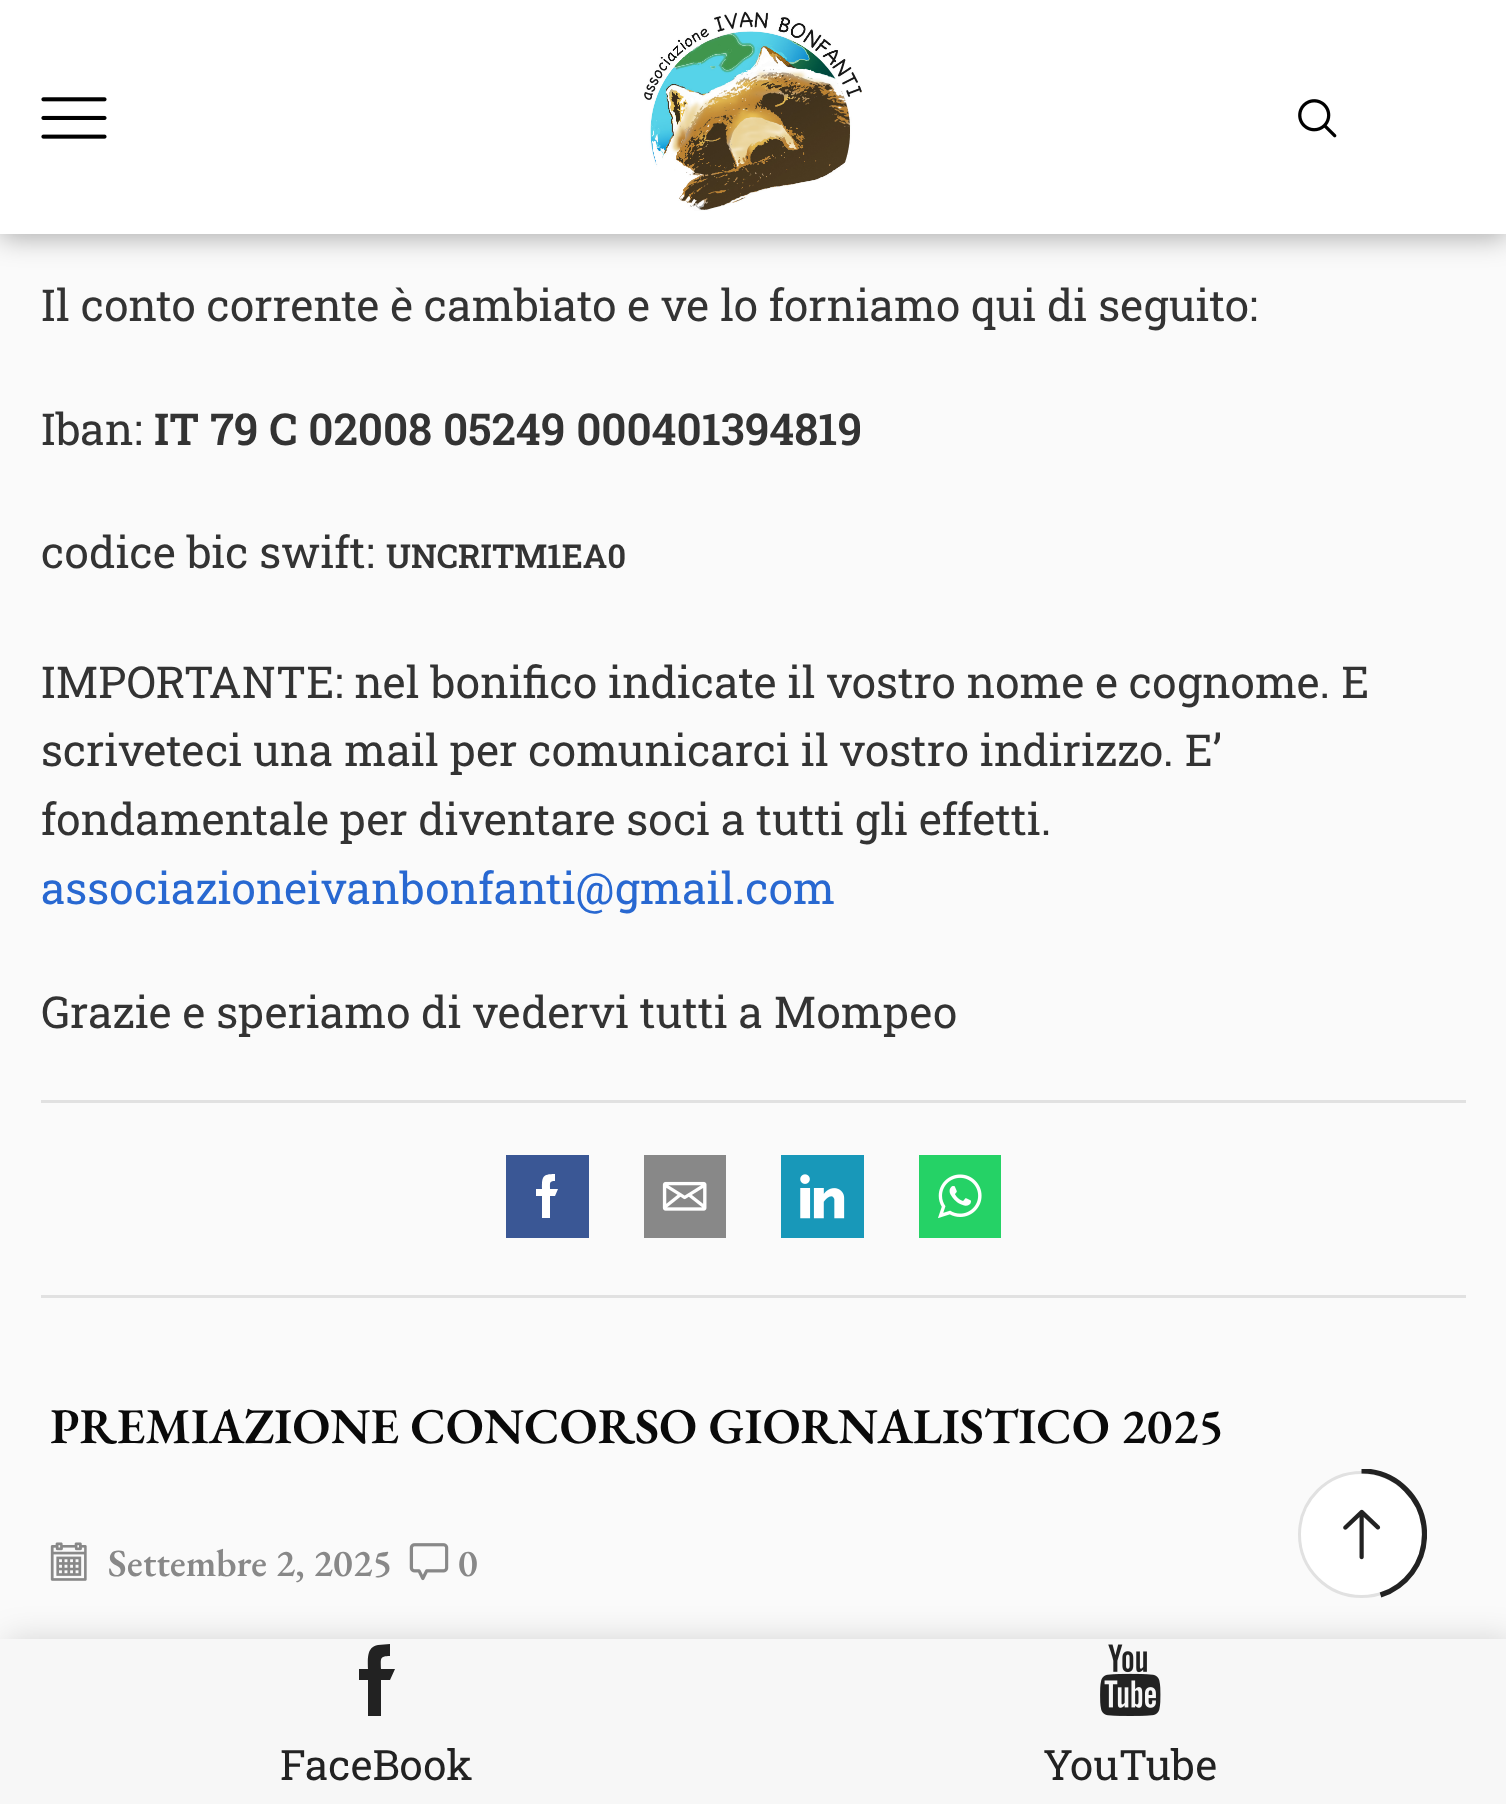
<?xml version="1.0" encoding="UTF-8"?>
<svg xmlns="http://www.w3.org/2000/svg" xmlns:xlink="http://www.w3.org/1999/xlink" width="1506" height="1804">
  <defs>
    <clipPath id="clip1"><rect x="1295" y="1469" width="132" height="132" /></clipPath>
  </defs>
  <rect width="100%" height="100%" fill="#fafafa" />
  <rect y="3" width="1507" height="234" fill="#000000" fill-opacity="0.33" filter="blur(14px)" />
  <rect width="1506" height="234" fill="#ffffff" />
  <image x="41" y="97" width="66" height="42" xlink:href="image1.png" />
  <image x="644" y="11" width="218" height="200" xlink:href="image2.png" />
  <image x="1298" y="99" width="39" height="39" xlink:href="image3.png" />
  <rect x="41" y="1100" width="1425" height="3" fill="#e1e1e1" />
  <rect x="41" y="1295" width="1425" height="3" fill="#e1e1e1" />
  <rect x="506" y="1155" width="83" height="83" fill="#3a5795" />
  <path d="M 550 1189 c 0 -6 -1 -8 5 -8 v -7 c -13 0 -13 3 -13 15 h -6 v 7 h 6 v 22 h 8 v -22 h 5 l 3 -7 z" fill="#ffffff" />
  <rect x="644" y="1155" width="82" height="83" fill="#888888" />
  <image x="662" y="1181" width="45" height="30" xlink:href="image4.png" />
  <rect x="781" y="1155" width="83" height="83" fill="#1898b9" />
  <image x="800" y="1174" width="45" height="45" xlink:href="image5.png" />
  <rect x="919" y="1155" width="82" height="83" fill="#25d266" />
  <image x="938" y="1174" width="44" height="45" xlink:href="image6.png" />
  <image x="50" y="1542" width="37" height="39" xlink:href="image7.png" />
  <image x="409" y="1543" width="40" height="38" xlink:href="image8.png" />
  <rect x="6" y="1639" width="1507" height="165" fill="#000000" fill-opacity="0.15" filter="blur(16.5px)" />
  <circle cx="1361.5" cy="1534.5" r="62" fill="#ffffff" stroke="#e1e1e1" stroke-width="3" />
  <g clip-path="url(#clip1)">
    <path d="M 1361.5 1471 c 35 0 63 28.5 63 63.5 c 0 28.5 -18.5 52.5 -44 60.5" fill="none" stroke="#222222" stroke-width="5.2" />
  </g>
  <image x="1343" y="1509" width="38" height="51" xlink:href="image9.png" />
  <rect y="1639" width="1506" height="165" fill="#f7f7f7" />
  <path d="M 381 1669 c 0 -10 -2 -13 9 -13 v -12 l -12 1 c -12 2 -10 15 -10 24 h -9 v 11 h 9 v 36 h 13 v -36 h 9 l 5 -11 z" fill="#222222" />
  <image x="1100" y="1644" width="61" height="72" xlink:href="image10.png" />
  <text x="41" y="321" style="font-family: Roboto Slab; font-size: 44px; fill: #333333">Il conto corrente è cambiato e ve lo forniamo qui di seguito:</text>
  <text x="41" y="445" style="font-family: Roboto Slab; font-size: 44px; fill: #333333">Iban:</text>
  <text x="154" y="445" style="font-family: Roboto Slab; font-size: 44px; font-weight: 600; fill: #333333">IT 79 C 02008 05249 000401394819</text>
  <text x="41" y="568" style="font-family: Roboto Slab; font-size: 44px; fill: #333333">codice bic swift:</text>
  <text x="386" y="568" style="font-family: Roboto Slab; font-size: 33px; font-weight: 600; fill: #333333">UNCRITM1EA0</text>
  <text x="41" y="698" style="font-family: Roboto Slab; font-size: 44px; fill: #333333">IMPORTANTE: nel bonifico indicate il vostro nome e cognome. E</text>
  <text x="41" y="766" style="font-family: Roboto Slab; font-size: 44px; fill: #333333">scriveteci una mail per comunicarci il vostro indirizzo. E’</text>
  <text x="41" y="835" style="font-family: Roboto Slab; font-size: 44px; fill: #333333">fondamentale per diventare soci a tutti gli effetti.</text>
  <text x="41" y="904" style="font-family: Roboto Slab; font-size: 44px; fill: #2868d1">associazioneivanbonfanti@gmail.com</text>
  <text x="41" y="1028" style="font-family: Roboto Slab; font-size: 44px; fill: #333333">Grazie e speriamo di vedervi tutti a Mompeo</text>
  <text x="50" y="1443" style="font-family: EB Garamond; font-size: 50.05px; font-weight: 600; fill: #0a0a0a">PREMIAZIONE CONCORSO GIORNALISTICO 2025</text>
  <text x="108" y="1576" style="font-family: EB Garamond; font-size: 38.5px; font-weight: 600; fill: #888888">Settembre 2, 2025</text>
  <text x="458" y="1576" style="font-family: EB Garamond; font-size: 38.5px; font-weight: 600; fill: #888888">0</text>
  <text x="280" y="1780" style="font-family: Roboto Slab; font-size: 42px; fill: #222222">FaceBook</text>
  <text x="1043" y="1780" style="font-family: Roboto Slab; font-size: 42px; fill: #222222">YouTube</text>
</svg>
